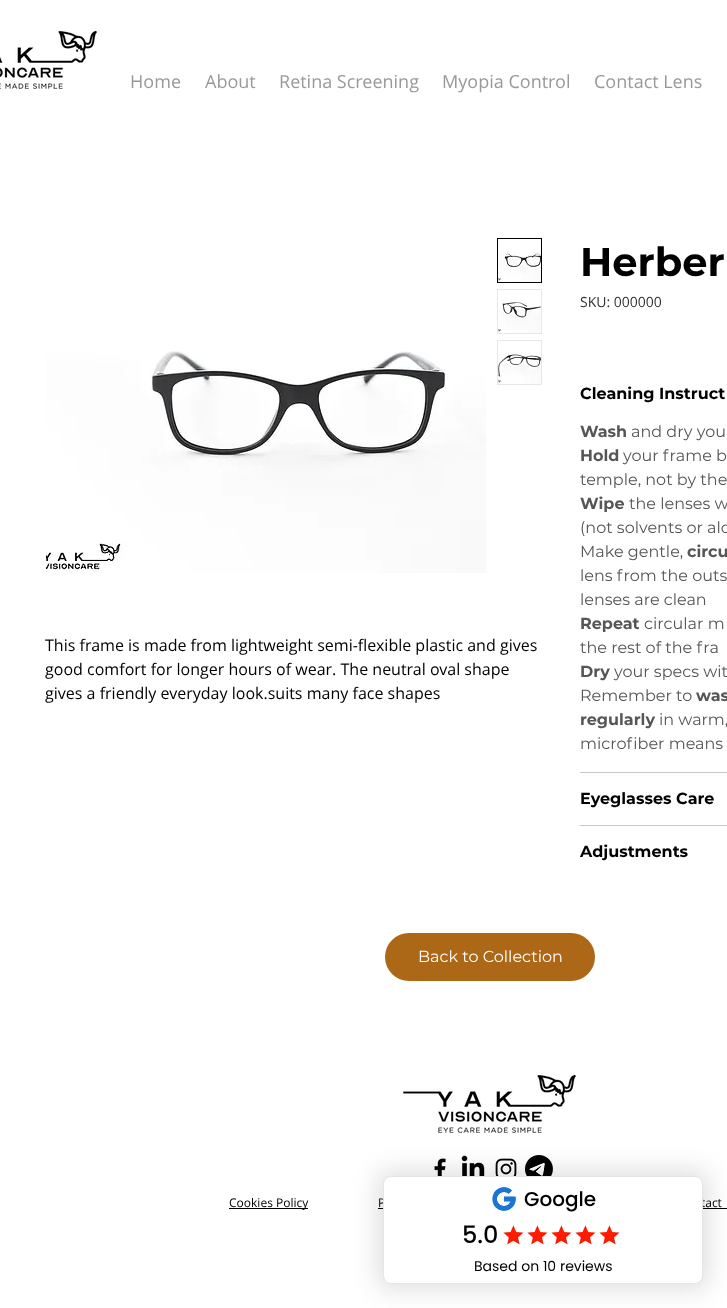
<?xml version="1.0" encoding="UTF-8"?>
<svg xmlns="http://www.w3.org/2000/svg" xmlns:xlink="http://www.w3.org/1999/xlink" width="727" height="1308">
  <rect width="100%" height="100%" fill="#ffffff" />
  <image x="0" y="30" width="97" height="59" xlink:href="image1.png" />
  <rect x="497.5" y="238.5" width="44" height="44" fill="none" stroke="#000000" />
  <image x="498" y="239" width="43" height="43" xlink:href="image2.png" />
  <rect x="497" y="289" width="45" height="45" fill="#e8e6e6" />
  <image x="498" y="290" width="43" height="43" xlink:href="image3.png" />
  <rect x="497" y="340" width="45" height="45" fill="#e8e6e6" />
  <image x="498" y="341" width="43" height="43" xlink:href="image4.png" />
  <image x="46" y="351" width="440" height="222" xlink:href="image5.png" />
  <rect x="580" y="772" width="147" height="1" fill="#c7c7c7" />
  <rect x="580" y="825" width="147" height="1" fill="#c7c7c7" />
  <rect x="385" y="933" width="210" height="48" rx="24" fill="#ad6817" />
  <image x="403" y="1074" width="173" height="59" xlink:href="image6.png" />
  <image x="434" y="1158" width="12" height="18" xlink:href="image7.png" />
  <image x="461" y="1155" width="24" height="21" xlink:href="image8.png" />
  <image x="495" y="1158" width="22" height="18" xlink:href="image9.png" />
  <image x="525" y="1155" width="28" height="21" xlink:href="image10.png" />
  <rect x="229" y="1208" width="79" height="1" fill="#000000" />
  <rect x="378" y="1208" width="5" height="1" fill="#000000" />
  <rect x="703" y="1208" width="24" height="1" fill="#000000" />
  <rect x="377" y="1170" width="332" height="120" rx="12" fill="#000000" fill-opacity="0.12" filter="blur(12px)" />
  <text x="130" y="88" style="font-family: Open Sans; font-size: 18px; fill: #999997">Home</text>
  <text x="205" y="88" style="font-family: Open Sans; font-size: 18px; fill: #999997">About</text>
  <text x="279" y="88" style="font-family: Open Sans; font-size: 18px; fill: #999997">Retina Screening</text>
  <text x="442" y="88" style="font-family: Open Sans; font-size: 18px; fill: #999997">Myopia Control</text>
  <text x="594" y="88" style="font-family: Open Sans; font-size: 18px; fill: #999997">Contact Lens</text>
  <text x="45" y="651" style="font-family: Open Sans; font-size: 16px; fill: #000000">This frame is made from lightweight semi-flexible plastic and gives</text>
  <text x="45" y="675" style="font-family: Open Sans; font-size: 16px; fill: #000000">good comfort for longer hours of wear. The neutral oval shape</text>
  <text x="45" y="699" style="font-family: Open Sans; font-size: 16px; fill: #000000">gives a friendly everyday look.suits many face shapes</text>
  <text x="580" y="276" style="font-family: Montserrat; font-size: 40px; font-weight: bold; fill: #000000">Herber</text>
  <text x="580" y="307" style="font-family: Open Sans; font-size: 14px; fill: #333333">SKU: 000000</text>
  <text x="580" y="399" style="font-family: Montserrat; font-size: 16px; font-weight: bold; fill: #000000">Cleaning Instruct</text>
  <text x="580" y="437" style="font-family: Montserrat; font-size: 16px; font-weight: bold; fill: #565656">Wash</text>
  <text x="631" y="437" style="font-family: Montserrat; font-size: 16px; fill: #565656">and dry you</text>
  <text x="580" y="461" style="font-family: Montserrat; font-size: 16px; font-weight: bold; fill: #565656">Hold</text>
  <text x="623" y="461" style="font-family: Montserrat; font-size: 16px; fill: #565656">your frame b</text>
  <text x="580" y="485" style="font-family: Montserrat; font-size: 16px; fill: #565656">temple, not by the</text>
  <text x="580" y="509" style="font-family: Montserrat; font-size: 16px; font-weight: bold; fill: #565656">Wipe</text>
  <text x="629" y="509" style="font-family: Montserrat; font-size: 16px; fill: #565656">the lenses w</text>
  <text x="580" y="533" style="font-family: Montserrat; font-size: 16px; fill: #565656">(not solvents or alc</text>
  <text x="580" y="557" style="font-family: Montserrat; font-size: 16px; fill: #565656">Make gentle,</text>
  <text x="687" y="557" style="font-family: Montserrat; font-size: 16px; font-weight: bold; fill: #565656">circu</text>
  <text x="580" y="581" style="font-family: Montserrat; font-size: 16px; fill: #565656">lens from the outs</text>
  <text x="580" y="605" style="font-family: Montserrat; font-size: 16px; fill: #565656">lenses are clean</text>
  <text x="580" y="629" style="font-family: Montserrat; font-size: 16px; font-weight: bold; fill: #565656">Repeat</text>
  <text x="644" y="629" style="font-family: Montserrat; font-size: 16px; fill: #565656">circular m</text>
  <text x="580" y="653" style="font-family: Montserrat; font-size: 16px; fill: #565656">the rest of the fra</text>
  <text x="580" y="677" style="font-family: Montserrat; font-size: 16px; font-weight: bold; fill: #565656">Dry</text>
  <text x="614" y="677" style="font-family: Montserrat; font-size: 16px; fill: #565656">your specs wit</text>
  <text x="580" y="701" style="font-family: Montserrat; font-size: 16px; fill: #565656">Remember to</text>
  <text x="696" y="701" style="font-family: Montserrat; font-size: 16px; font-weight: bold; fill: #565656">was</text>
  <text x="580" y="725" style="font-family: Montserrat; font-size: 16px; font-weight: bold; fill: #565656">regularly</text>
  <text x="659" y="725" style="font-family: Montserrat; font-size: 16px; fill: #565656">in warm,</text>
  <text x="580" y="749" style="font-family: Montserrat; font-size: 16px; fill: #565656">microfiber means</text>
  <text x="580" y="804" style="font-family: Montserrat; font-size: 16px; font-weight: bold; fill: #000000">Eyeglasses Care</text>
  <text x="580" y="857" style="font-family: Montserrat; font-size: 16px; font-weight: bold; fill: #000000">Adjustments</text>
  <text x="418" y="962" style="font-family: Montserrat; font-size: 16px; fill: #ffffff">Back to Collection</text>
  <text x="229" y="1207" style="font-family: Open Sans; font-size: 12px; fill: #000000">Cookies Policy</text>
  <text x="378" y="1207" style="font-family: Open Sans; font-size: 12px; fill: #000000">P</text>
  <text x="701" y="1207" style="font-family: Open Sans; font-size: 12px; fill: #000000">tact</text>
  <rect x="383.5" y="1176.5" width="319" height="107" rx="7.5" fill="#ffffff" stroke="#e5e5e5" />
  <image x="492" y="1187" width="24" height="24" xlink:href="image11.png" />
  <text x="524" y="1206" style="font-family: Poppins; font-size: 20px; font-weight: 500; fill: #000000">Google</text>
  <text x="462" y="1243" style="font-family: Poppins; font-size: 24px; font-weight: 500; fill: #000000">5.0</text>
  <image x="503" y="1225" width="20" height="20" xlink:href="image12.png" />
  <image x="503" y="1225" width="21" height="20" xlink:href="image13.png" />
  <image x="527" y="1225" width="20" height="20" xlink:href="image12.png" />
  <image x="527" y="1225" width="21" height="20" xlink:href="image13.png" />
  <image x="551" y="1225" width="20" height="20" xlink:href="image12.png" />
  <image x="551" y="1225" width="21" height="20" xlink:href="image13.png" />
  <image x="575" y="1225" width="20" height="20" xlink:href="image12.png" />
  <image x="575" y="1225" width="21" height="20" xlink:href="image13.png" />
  <image x="599" y="1225" width="20" height="20" xlink:href="image12.png" />
  <image x="599" y="1225" width="21" height="20" xlink:href="image13.png" />
  <text x="474" y="1271" style="font-family: Poppins; font-size: 14px; fill: #000000">Based on 10 reviews</text>
</svg>
